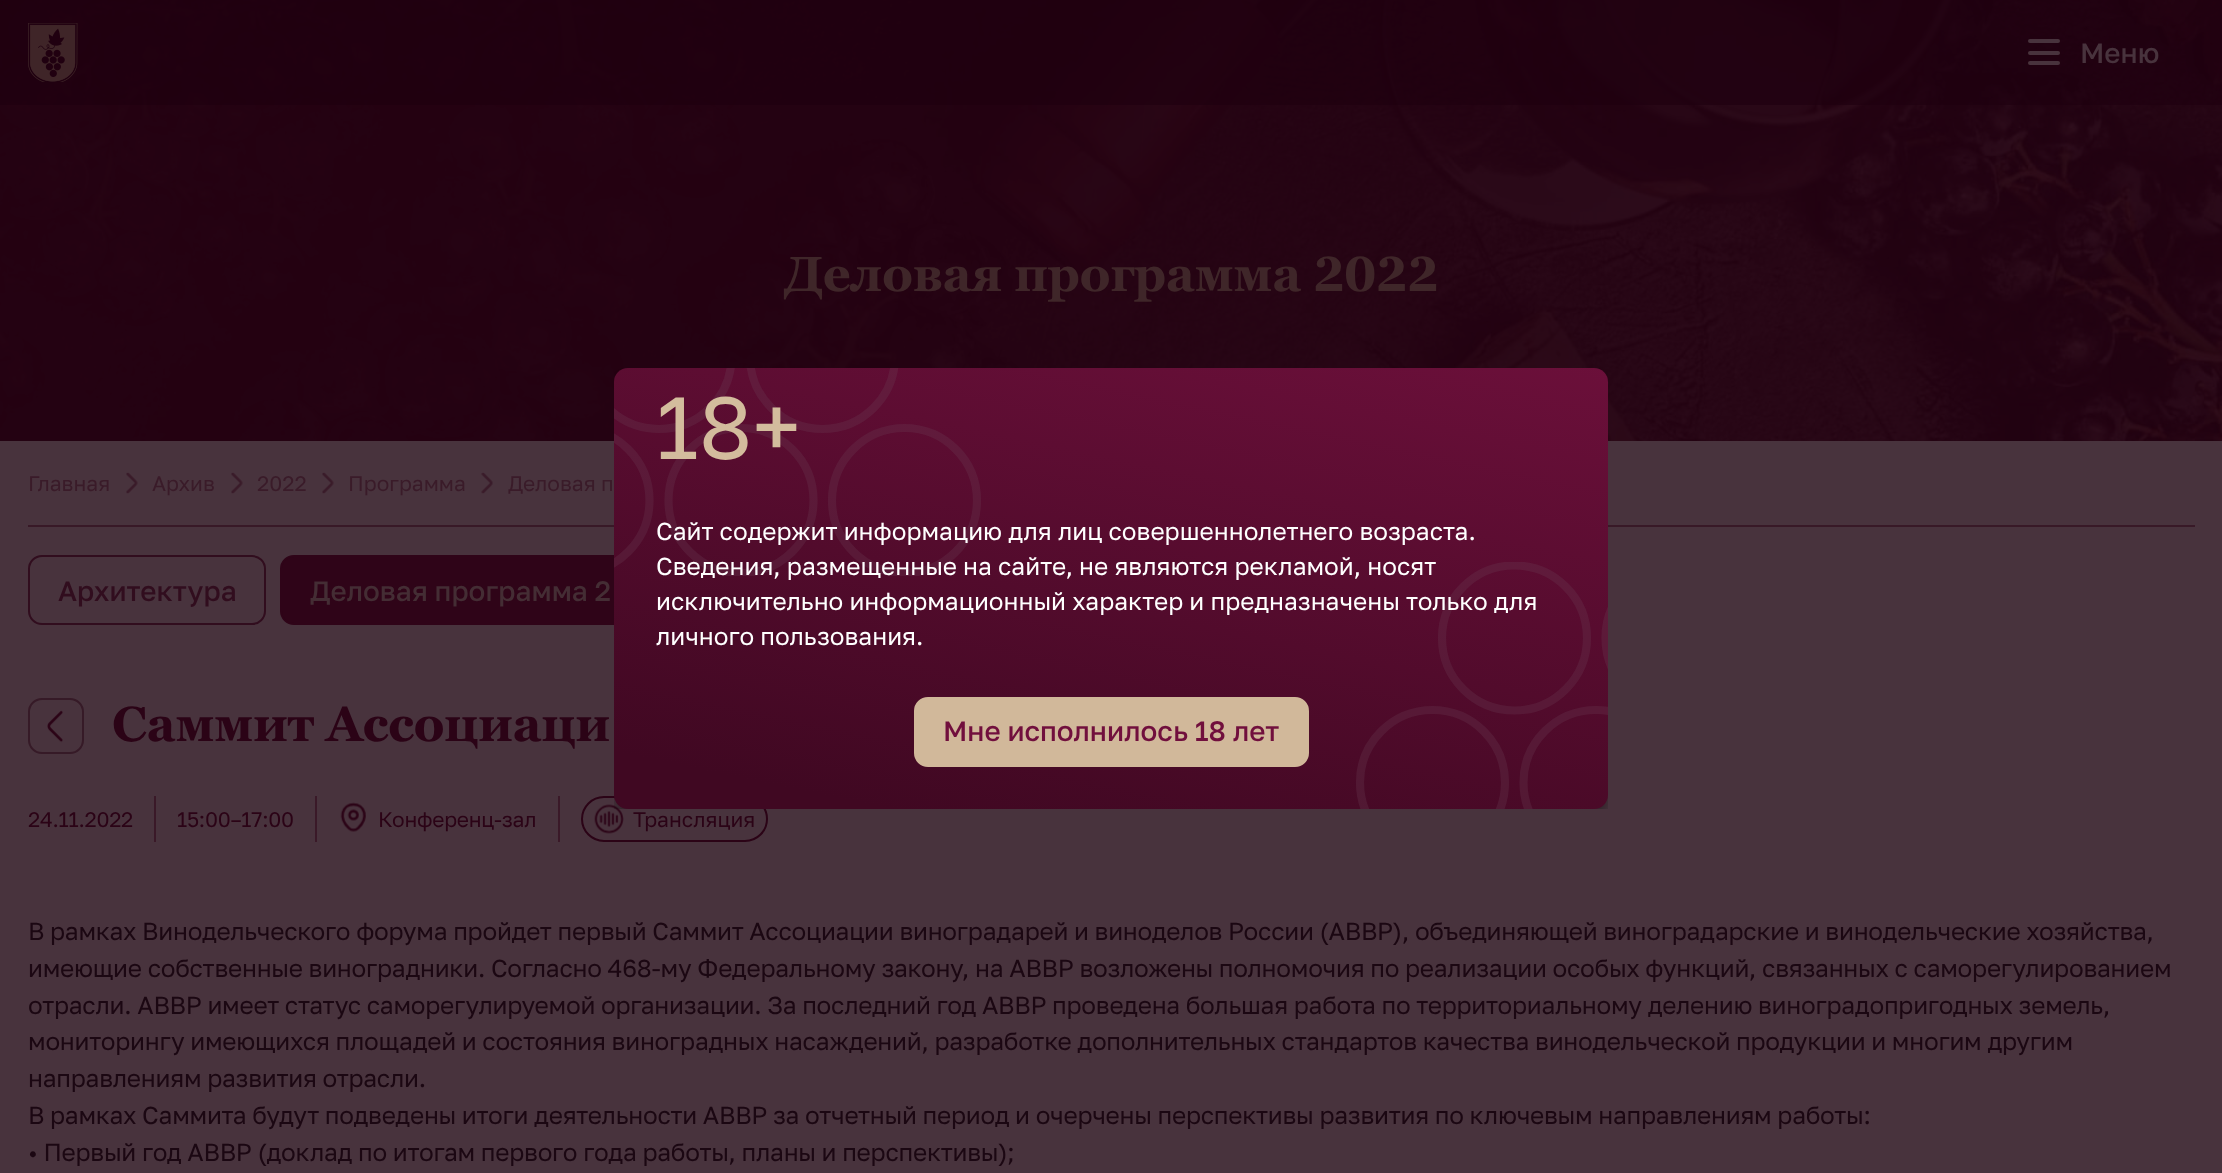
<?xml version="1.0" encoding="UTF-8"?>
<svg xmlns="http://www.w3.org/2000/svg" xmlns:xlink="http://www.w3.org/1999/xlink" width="2222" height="1173">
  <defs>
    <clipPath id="clip1"><rect x="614" y="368" width="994" height="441" /></clipPath>
    <linearGradient id="g1" gradientUnits="userSpaceOnUse" x1="1187" y1="225" x2="1047" y2="898"><stop offset="0" stop-color="#6f103c" /><stop offset="0.92" stop-color="#400822" /></linearGradient>
    <clipPath id="clip2"><rect x="614" y="368" width="375" height="208" /></clipPath>
    <clipPath id="clip3"><rect x="1349" y="562" width="259" height="247" /></clipPath>
  </defs>
  <rect width="100%" height="100%" fill="#48333d" />
  <image x="0" y="0" width="2222" height="441" xlink:href="image2.png" />
  <rect width="2222" height="105" fill="#1f000f" fill-opacity="0.65" />
  <image x="28" y="23" width="50" height="59" xlink:href="image1.png" />
  <rect x="2028" y="39" width="32" height="4" rx="2" fill="#48333d" />
  <rect x="2028" y="51" width="32" height="4" rx="2" fill="#48333d" />
  <rect x="2028" y="61" width="32" height="4" rx="2" fill="#48333d" />
  <rect x="28" y="525" width="2167" height="2" fill="#381927" />
  <image x="126" y="472" width="12" height="22" xlink:href="image3.png" />
  <image x="231" y="472" width="12" height="22" xlink:href="image3.png" />
  <image x="322" y="472" width="12" height="22" xlink:href="image3.png" />
  <image x="481" y="472" width="12" height="22" xlink:href="image4.png" />
  <rect x="29" y="556" width="236" height="68" rx="13" fill="none" stroke="#310d1e" stroke-width="2" />
  <rect x="281" y="556" width="409" height="68" rx="13" fill="#2f0418" stroke="#2f0418" stroke-width="2" />
  <rect x="29" y="699" width="54" height="54" rx="13" fill="none" stroke="#361a27" stroke-width="2" />
  <image x="47" y="710" width="16" height="33" xlink:href="image5.png" />
  <rect x="154" y="796" width="2" height="46" fill="#3a1928" />
  <rect x="315" y="796" width="2" height="46" fill="#3a1928" />
  <image x="340" y="802" width="26" height="30" xlink:href="image6.png" />
  <rect x="558" y="796" width="2" height="46" fill="#3a1928" />
  <rect x="582" y="797" width="185" height="44" rx="22" fill="none" stroke="#2b0316" stroke-width="2" />
  <image x="594" y="804" width="30" height="30" xlink:href="image7.png" />
  <g clip-path="url(#clip1)">
    <rect x="614" y="375" width="994" height="441" rx="14" fill="#000000" fill-opacity="0.25" filter="blur(3.5px)" />
  </g>
  <rect x="614" y="368" width="994" height="441" rx="14" fill="url(#g1)" />
  <g clip-path="url(#clip2)">
    <circle cx="659" cy="356.5" r="72.5" fill="none" stroke="#6d4055" stroke-opacity="0.28" stroke-width="8.2" />
    <circle cx="822.5" cy="356.5" r="72.5" fill="none" stroke="#6d4055" stroke-opacity="0.28" stroke-width="8.2" />
    <circle cx="577" cy="500.5" r="72.5" fill="none" stroke="#6d4055" stroke-opacity="0.28" stroke-width="8.2" />
    <circle cx="741" cy="500.5" r="72.5" fill="none" stroke="#6d4055" stroke-opacity="0.28" stroke-width="8.2" />
    <circle cx="904.5" cy="500.5" r="72.5" fill="none" stroke="#6d4055" stroke-opacity="0.28" stroke-width="8.2" />
  </g>
  <rect x="915" y="698" width="393" height="68" rx="13" fill="#d1b89a" stroke="#d1b89a" stroke-width="2" />
  <g clip-path="url(#clip3)">
    <circle cx="1514.5" cy="638" r="72.5" fill="none" stroke="#6d4055" stroke-opacity="0.28" stroke-width="8.2" />
    <circle cx="1678" cy="638" r="72.5" fill="none" stroke="#6d4055" stroke-opacity="0.28" stroke-width="8.2" />
    <circle cx="1432.5" cy="782.5" r="72.5" fill="none" stroke="#6d4055" stroke-opacity="0.28" stroke-width="8.2" />
    <circle cx="1596" cy="782.5" r="72.5" fill="none" stroke="#6d4055" stroke-opacity="0.28" stroke-width="8.2" />
  </g>
  <text x="2080" y="63" style="font-family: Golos; font-size: 28px; font-weight: 500; fill: #48333d">Меню</text>
  <text x="784" y="291" style="font-family: Georgia; font-size: 49px; font-weight: bold; letter-spacing: -0.5px; fill: #3f2629">Деловая программа 2022</text>
  <text x="28" y="491" style="font-family: Golos; font-size: 21px; fill: #3a1b29">Главная</text>
  <text x="152" y="491" style="font-family: Golos; font-size: 21px; fill: #3a1b29">Архив</text>
  <text x="257" y="491" style="font-family: Golos; font-size: 21px; fill: #3a1b29">2022</text>
  <text x="348" y="491" style="font-family: Golos; font-size: 21px; fill: #3a1b29">Программа</text>
  <text x="508" y="491" style="font-family: Golos; font-size: 21px; fill: #3a1b29">Деловая п</text>
  <text x="58" y="601" style="font-family: Golos; font-size: 28px; font-weight: 500; fill: #310d1e">Архитектура</text>
  <text x="310" y="601" style="font-family: Golos; font-size: 28px; font-weight: 500; fill: #442d34">Деловая программа 2</text>
  <text x="112" y="741" style="font-family: Georgia; font-size: 49px; font-weight: bold; letter-spacing: -0.5px; fill: #2b0316">Саммит Ассоциаци</text>
  <text x="28" y="827" style="font-family: Golos; font-size: 21px; letter-spacing: -0.25px; fill: #2b0316">24.11.2022</text>
  <text x="177" y="827" style="font-family: Golos; font-size: 21px; letter-spacing: -0.25px; fill: #2b0316">15:00–17:00</text>
  <text x="378" y="827" style="font-family: Golos; font-size: 21px; letter-spacing: -0.25px; fill: #2b0316">Конференц-зал</text>
  <text x="633" y="827" style="font-family: Golos; font-size: 21px; fill: #2b0316">Трансляция</text>
  <text x="28" y="940" style="font-family: Golos; font-size: 24.5px; letter-spacing: -0.25px; fill: #1b0712">В рамках Винодельческого форума пройдет первый Саммит Ассоциации виноградарей и виноделов России (АВВР), объединяющей виноградарские и винодельческие хозяйства,</text>
  <text x="28" y="977" style="font-family: Golos; font-size: 24.5px; letter-spacing: -0.25px; fill: #1b0712">имеющие собственные виноградники. Согласно 468-му Федеральному закону, на АВВР возложены полномочия по реализации особых функций, связанных с саморегулированием</text>
  <text x="28" y="1014" style="font-family: Golos; font-size: 24.5px; letter-spacing: -0.25px; fill: #1b0712">отрасли. АВВР имеет статус саморегулируемой организации. За последний год АВВР проведена большая работа по территориальному делению виноградопригодных земель,</text>
  <text x="28" y="1050" style="font-family: Golos; font-size: 24.5px; letter-spacing: -0.25px; fill: #1b0712">мониторингу имеющихся площадей и состояния виноградных насаждений, разработке дополнительных стандартов качества винодельческой продукции и многим другим</text>
  <text x="28" y="1087" style="font-family: Golos; font-size: 24.5px; letter-spacing: -0.25px; fill: #1b0712">направлениям развития отрасли.</text>
  <text x="28" y="1124" style="font-family: Golos; font-size: 24.5px; letter-spacing: -0.25px; fill: #1b0712">В рамках Саммита будут подведены итоги деятельности АВВР за отчетный период и очерчены перспективы развития по ключевым направлениям работы:</text>
  <text x="28" y="1161" style="font-family: Golos; font-size: 24.5px; letter-spacing: -0.25px; fill: #1b0712">• Первый год АВВР (доклад по итогам первого года работы, планы и перспективы);</text>
  <text x="656" y="459" style="font-family: Golos; font-size: 88px; fill: #d3bc9d">18+</text>
  <text x="656" y="540" style="font-family: Golos; font-size: 24.5px; fill: #ffffff">Сайт содержит информацию для лиц совершеннолетнего возраста.</text>
  <text x="656" y="575" style="font-family: Golos; font-size: 24.5px; fill: #ffffff">Сведения, размещенные на сайте, не являются рекламой, носят</text>
  <text x="656" y="610" style="font-family: Golos; font-size: 24.5px; fill: #ffffff">исключительно информационный характер и предназначены только для</text>
  <text x="656" y="645" style="font-family: Golos; font-size: 24.5px; fill: #ffffff">личного пользования.</text>
  <text x="943" y="741" style="font-family: Golos; font-size: 28px; font-weight: 500; fill: #710f3d">Мне исполнилось 18 лет</text>
</svg>
